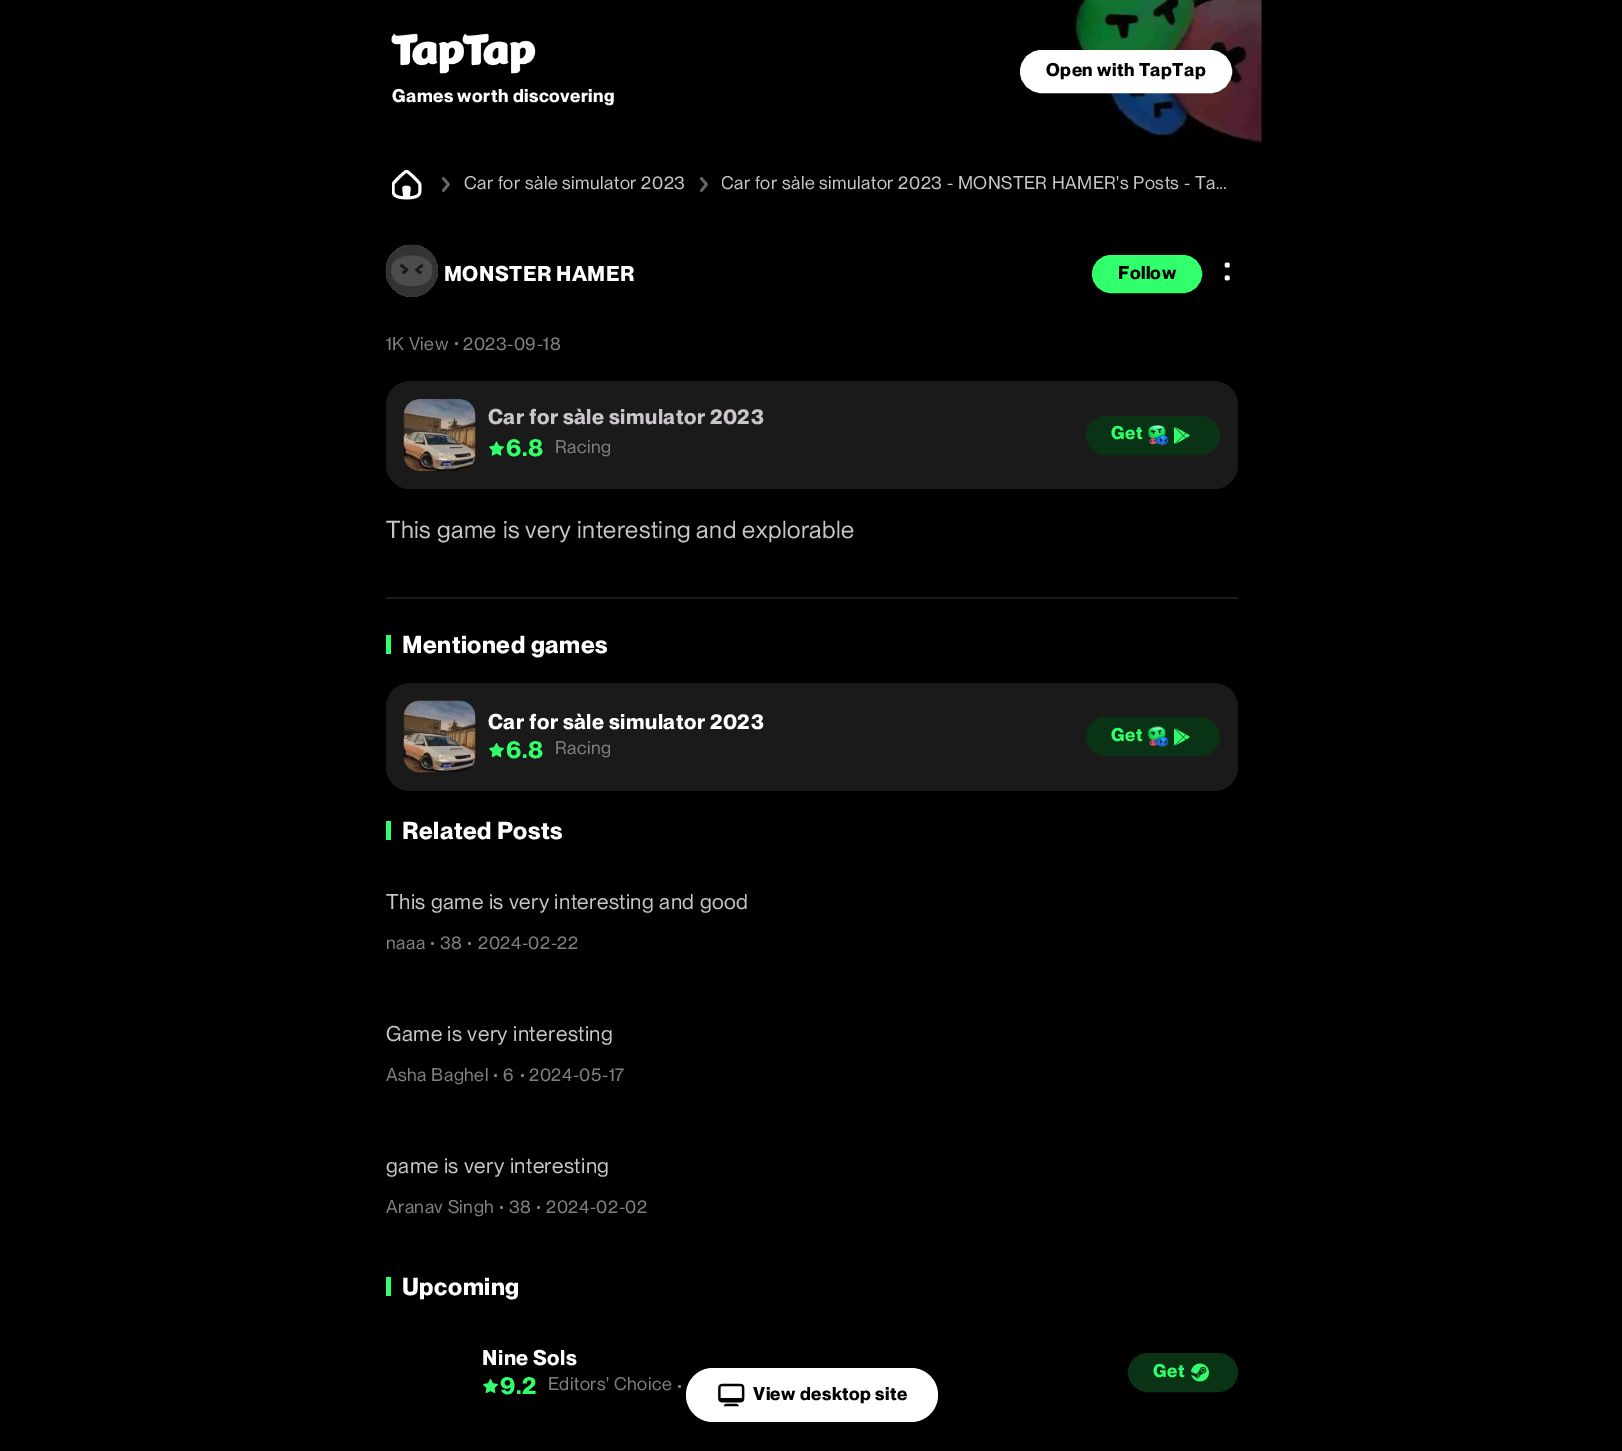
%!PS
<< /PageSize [1622 1451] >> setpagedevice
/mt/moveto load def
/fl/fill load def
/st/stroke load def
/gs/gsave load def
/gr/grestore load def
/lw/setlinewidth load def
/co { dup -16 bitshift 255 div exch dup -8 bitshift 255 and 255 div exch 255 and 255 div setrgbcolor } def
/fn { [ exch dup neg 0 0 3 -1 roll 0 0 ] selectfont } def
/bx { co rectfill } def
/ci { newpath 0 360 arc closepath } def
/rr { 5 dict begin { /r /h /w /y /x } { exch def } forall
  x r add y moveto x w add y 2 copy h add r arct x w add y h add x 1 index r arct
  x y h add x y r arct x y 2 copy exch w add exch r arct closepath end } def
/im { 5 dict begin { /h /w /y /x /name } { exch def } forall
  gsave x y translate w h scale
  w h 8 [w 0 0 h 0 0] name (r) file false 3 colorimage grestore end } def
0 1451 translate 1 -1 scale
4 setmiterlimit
0 0 1622 1451 16#000000 bx
(media/1.raw) 1071 0 191 143 im
16#FFFFFF co
1021 51 210 41 20.5 rr gs fl gr
2 lw
st
(media/2.raw) 391 33 145 41 im
(media/3.raw) 392 170 30 30 im
(media/4.raw) 441 177 9 15 im
(media/4.raw) 699 177 9 15 im
(media/5.raw) 385 244 53 53 im
16#31FF6C co
1093 256 108 36 18 rr gs fl gr
st
(media/6.raw) 1224 262 6 19 im
386 597 852 2 16#1A1A1A bx
16#808080 co
456.5 343.5 1.5 ci fl
16#1A1A1A co
386 381 852 108 24 rr fl
(media/7.raw) 403 399 73 72 im
(media/8.raw) 489 441 15 15 im
16#0A3316 co
1087 417 132 37 18.5 rr gs fl gr
st
(media/9.raw) 1148 425 21 20 im
(media/10.raw) 1174 427 16 17 im
386 635 5 19 16#31FF6C bx
16#1A1A1A co
386 683 852 108 24 rr fl
(media/11.raw) 403 700 73 73 im
(media/12.raw) 489 743 15 15 im
16#0A3316 co
1087 718 132 37 18.5 rr gs fl gr
st
(media/13.raw) 1148 726 20 21 im
(media/14.raw) 1174 728 16 18 im
386 821 5 19 16#31FF6C bx
16#808080 co
432.5 943.5 1.5 ci fl
469.5 943.5 1.5 ci fl
495.5 1075.5 1.5 ci fl
522.5 1075.5 1.5 ci fl
501.5 1207.5 1.5 ci fl
538.5 1207.5 1.5 ci fl
386 1277 5 19 16#31FF6C bx
(media/15.raw) 483 1379 15 15 im
16#808080 co
679.5 1386.5 1.5 ci fl
16#0A3316 co
1129 1354 108 37 18.5 rr gs fl gr
st
(media/16.raw) 1191 1363 18 19 im
16#FFFFFF co
686 1368 252 54 27 rr fl
(media/17.raw) 718 1383 27 24 im
/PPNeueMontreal-Bold 18 fn
16#000000 co
1046 76 mt .48 0 (Open with TapTap) ashow
16#FFFFFF co
392 102 mt .48 0 (Games worth discovering) ashow
/PPNeueMontreal-Regular 18 fn
16#C9C5CA co
464 189 mt .48 0 (Car for sàle simulator 2023) ashow
gs
722 173 516 24 rectclip
721 189 mt .48 0 (Car for sàle simulator 2023 - MONSTER HAMER's Posts - Ta…) ashow
gr
/PPNeueMontreal-Bold 21 fn
16#FFFFFF co
444 281 mt .48 0 (MONSTER HAMER) ashow
/PPNeueMontreal-Bold 18 fn
16#000000 co
1118 279 mt .48 0 (Follow) ashow
/PPNeueMontreal-Regular 18 fn
16#808080 co
386 350 mt .48 0 (1K View) ashow
463 350 mt .48 0 (2023-09-18) ashow
/PPNeueMontreal-Bold 21 fn
16#C9C5CA co
488 424 mt .48 0 (Car for sàle simulator 2023) ashow
/PPNeueMontreal-Bold 24 fn
16#31FF6C co
506 456 mt .48 0 (6.8) ashow
/PPNeueMontreal-Regular 18 fn
16#808080 co
555 453 mt .48 0 (Racing) ashow
/PPNeueMontreal-Bold 18 fn
16#31FF6C co
1111 439 mt .48 0 (Get) ashow
/PPNeueMontreal-Regular 24 fn
16#C9C5CA co
386 538 mt .48 0 (This game is very interesting and explorable) ashow
/PPNeueMontreal-Bold 24 fn
16#FFFFFF co
402 653 mt .48 0 (Mentioned games) ashow
/PPNeueMontreal-Bold 21 fn
488 729 mt .48 0 (Car for sàle simulator 2023) ashow
/PPNeueMontreal-Bold 24 fn
16#31FF6C co
506 758 mt .48 0 (6.8) ashow
/PPNeueMontreal-Regular 18 fn
16#808080 co
555 754 mt .48 0 (Racing) ashow
/PPNeueMontreal-Bold 18 fn
16#31FF6C co
1111 741 mt .48 0 (Get) ashow
/PPNeueMontreal-Bold 24 fn
16#FFFFFF co
402 839 mt .48 0 (Related Posts) ashow
/PPNeueMontreal-Regular 21 fn
16#C9C5CA co
386 909 mt .48 0 (This game is very interesting and good) ashow
/PPNeueMontreal-Regular 18 fn
16#808080 co
386 949 mt .48 0 (naaa) ashow
440 949 mt .48 0 (38) ashow
478 949 mt .48 0 (2024-02-22) ashow
/PPNeueMontreal-Regular 21 fn
16#C9C5CA co
386 1041 mt .48 0 (Game is very interesting) ashow
/PPNeueMontreal-Regular 18 fn
16#808080 co
386 1081 mt .48 0 (Asha Baghel) ashow
503 1081 mt .48 0 (6) ashow
529 1081 mt .48 0 (2024-05-17) ashow
/PPNeueMontreal-Regular 21 fn
16#C9C5CA co
386 1173 mt .48 0 (game is very interesting) ashow
/PPNeueMontreal-Regular 18 fn
16#808080 co
386 1213 mt .48 0 (Aranav Singh) ashow
509 1213 mt .48 0 (38) ashow
546 1213 mt .48 0 (2024-02-02) ashow
/PPNeueMontreal-Bold 24 fn
16#FFFFFF co
402 1295 mt .48 0 (Upcoming) ashow
/PPNeueMontreal-Bold 21 fn
482 1365 mt .48 0 (Nine Sols) ashow
/PPNeueMontreal-Bold 24 fn
16#31FF6C co
500 1394 mt .48 0 (9.2) ashow
/PPNeueMontreal-Regular 18 fn
16#808080 co
548 1390 mt .48 0 (Editors' Choice) ashow
/PPNeueMontreal-Bold 18 fn
16#31FF6C co
1153 1377 mt .48 0 (Get) ashow
16#000000 co
753 1400 mt .48 0 (View desktop site) ashow
showpage
